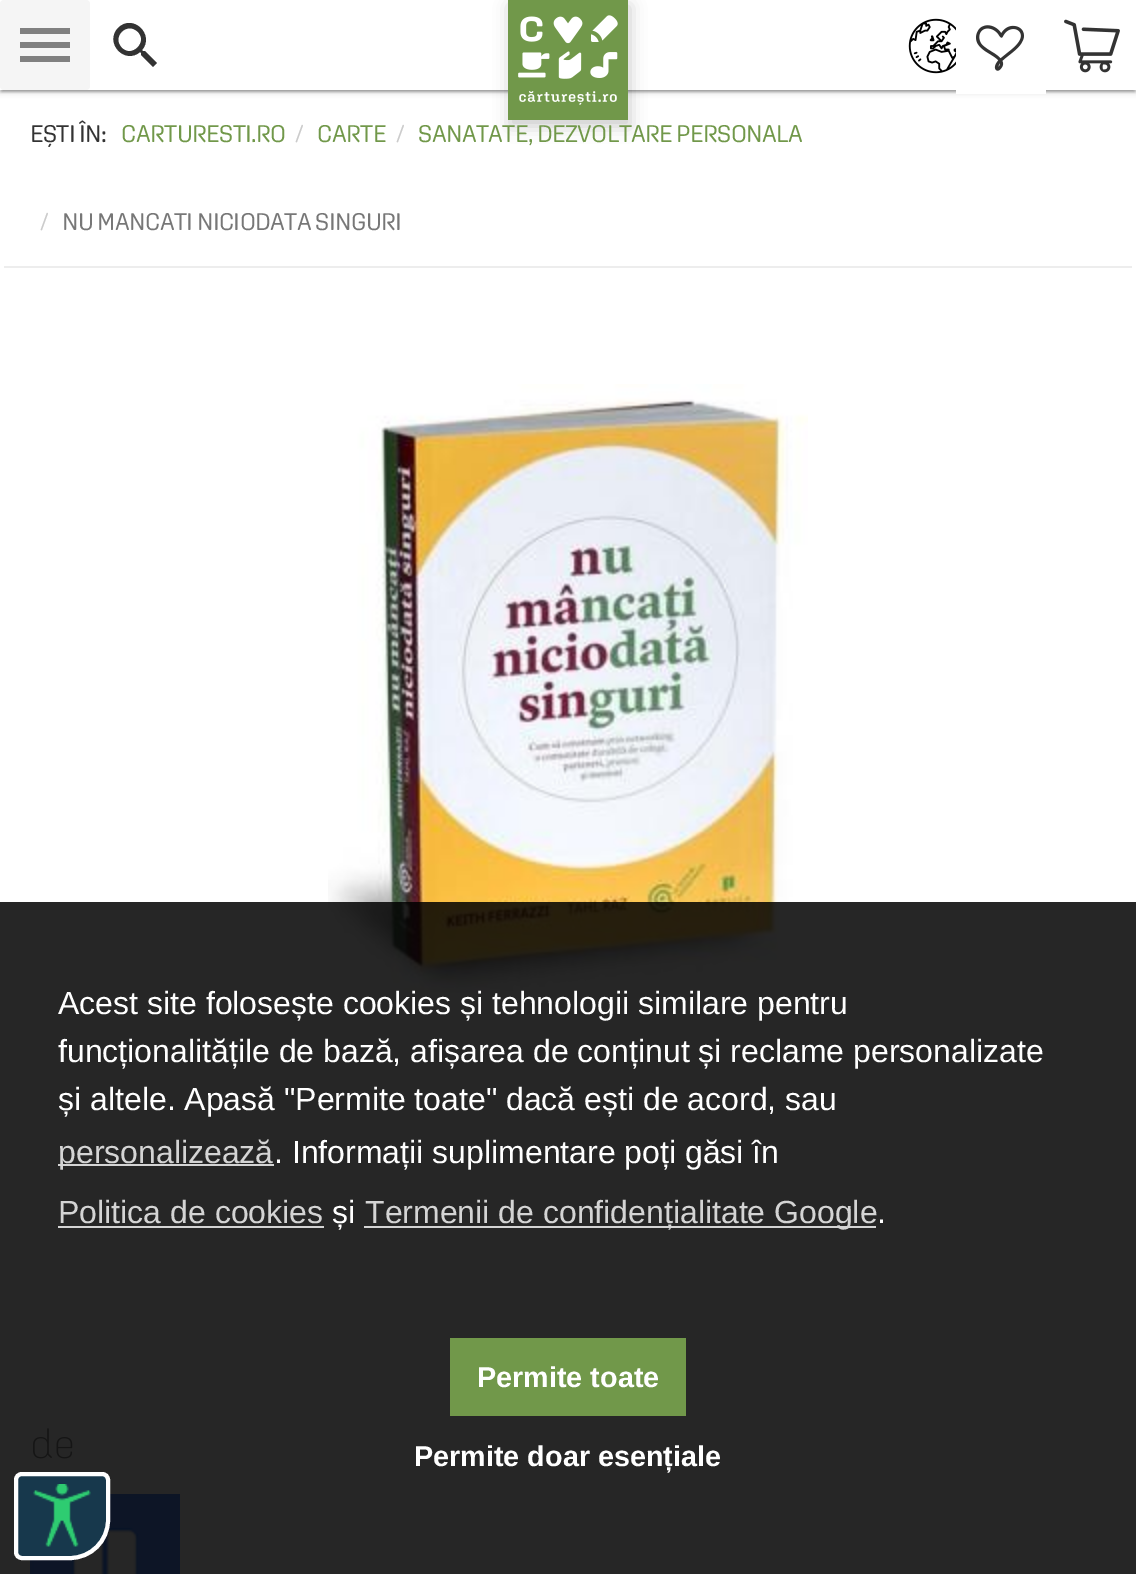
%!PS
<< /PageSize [1136 1574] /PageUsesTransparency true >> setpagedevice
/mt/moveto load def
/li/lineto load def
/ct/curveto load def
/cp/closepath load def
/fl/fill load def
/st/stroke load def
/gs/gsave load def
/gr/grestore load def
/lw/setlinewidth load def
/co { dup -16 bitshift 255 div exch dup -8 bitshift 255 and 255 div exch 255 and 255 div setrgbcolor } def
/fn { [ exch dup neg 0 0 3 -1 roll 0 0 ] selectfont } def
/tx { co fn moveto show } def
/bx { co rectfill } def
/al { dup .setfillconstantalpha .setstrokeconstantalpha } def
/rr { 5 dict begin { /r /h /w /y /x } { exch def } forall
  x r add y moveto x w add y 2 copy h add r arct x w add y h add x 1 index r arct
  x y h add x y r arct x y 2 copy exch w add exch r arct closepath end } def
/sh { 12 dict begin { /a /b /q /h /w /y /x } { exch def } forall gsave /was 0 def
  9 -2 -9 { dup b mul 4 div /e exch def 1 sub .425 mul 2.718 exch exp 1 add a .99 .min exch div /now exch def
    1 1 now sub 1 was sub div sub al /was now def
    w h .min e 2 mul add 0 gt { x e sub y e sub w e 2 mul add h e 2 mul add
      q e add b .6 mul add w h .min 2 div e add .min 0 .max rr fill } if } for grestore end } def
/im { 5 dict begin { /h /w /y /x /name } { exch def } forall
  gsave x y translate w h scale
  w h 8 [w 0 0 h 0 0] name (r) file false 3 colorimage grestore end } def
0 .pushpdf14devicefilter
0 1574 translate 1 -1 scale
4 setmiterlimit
0 0 1136 1574 16#FFFFFF bx
16#000000 co
2 6 1132 86 0 1 .12 sh
0 2 1136 90 0 1 .14 sh
0 2 1136 90 0 3 .2 sh
0 0 508 90 16#FFFFFF bx
16#F5F5F5 co
0 0 90 90 4 rr fl
16#808080 co
20 28 mt 70 28 li 70 34 li 20 34 li cp 20 48 mt 20 42 li 70 42 li 70 48 li cp 20 62 mt 20 56 li 70 56 li 70 62 li cp fl
16#333333 co
122 48 mt 132 58 148 42 138 32 ct 127 21 111 37 122 48 ct cp 145 51 mt 157 63 li 153 67 li 141 55 li 141 53 li 140 52 li 125 65 104 43 118 28 ct 133 13 155 35 142 50 ct 143 51 li cp fl
628 0 508 90 16#FFFFFF bx
16#000000 co
510 6 120 120 0 8 .21 sh
508 0 120 120 16#71984A bx
(media/1.raw) 518 15 100 90 im
(media/2.raw) 1064 19 56 54 im
(media/3.raw) 908 18 48 56 im
956 90 90 4 16#FFFFFF bx
(media/4.raw) 976 25 48 46 im
4 266 1128 2 16#EDEDED bx
(media/5.raw) 328 384 480 609 im
(media/6.raw) 33 1428 40 31 im
(media/7.raw) 30 1494 150 80 im
0.85 al
0 902 1136 672 16#000000 bx
1 al
58 1164 216 2 16#D4D4D4 bx
58 1226 266 2 16#D4D4D4 bx
364 1226 512 2 16#D4D4D4 bx
450 1338 236 78 16#71984A bx
16#17384C co
22 1474 mt 102 1474 li 105.5 1474 108 1476.5 108 1480 ct 108 1520 li 108 1541 91 1558 70 1558 ct 22 1558 li 18.5 1558 16 1555.5 16 1552 ct 16 1480 li 16 1476.5 18.5 1474 22 1474 ct cp gs fl gr
16#FFFFFF co
4 lw
st
(media/8.raw) 33 1484 58 63 im
/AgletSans-Regular 24 fn
16#333333 co
30 142 mt -.6 0 (EȘTI ÎN:) ashow
16#71984A co
121 142 mt -.6 0 (CARTURESTI.RO) ashow
16#CCCCCC co
295 142 mt -.6 0 (/) ashow
16#71984A co
317 142 mt -.6 0 (CARTE) ashow
16#CCCCCC co
396 142 mt -.6 0 (/) ashow
16#71984A co
418 142 mt -.6 0 (SANATATE, DEZVOLTARE PERSONALA) ashow
16#CCCCCC co
40 230 mt -.6 0 (/) ashow
16#777777 co
62 230 mt -.6 0 (NU MANCATI NICIODATA SINGURI) ashow
(Acest site folosește cookies și tehnologii similare pentru) 58 1014 /LiberationSans-Regular 32 16#FFFFFF tx
(funcționalitățile de bază, afișarea de conținut și reclame personalizate) 58 1062 /LiberationSans-Regular 32 16#FFFFFF tx
(și altele. Apasă "Permite toate" dacă ești de acord, sau) 58 1110 /LiberationSans-Regular 32 16#FFFFFF tx
(personalizează) 58 1163 /LiberationSans-Regular 32 16#D4D4D4 tx
(. Informații suplimentare poți găsi în) 274 1163 /LiberationSans-Regular 32 16#FFFFFF tx
(Politica de cookies) 58 1223 /LiberationSans-Regular 32 16#D4D4D4 tx
(și) 332 1223 /LiberationSans-Regular 32 16#FFFFFF tx
(Termenii de confidențialitate Google) 365 1223 /LiberationSans-Regular 32 16#D4D4D4 tx
(.) 877 1223 /LiberationSans-Regular 32 16#FFFFFF tx
(Permite toate) 477 1387 /LiberationSans-Bold 28.75 16#FFFFFF tx
(Permite doar esențiale) 414 1466 /LiberationSans-Bold 28.75 16#FFFFFF tx
.poppdf14devicefilter showpage
